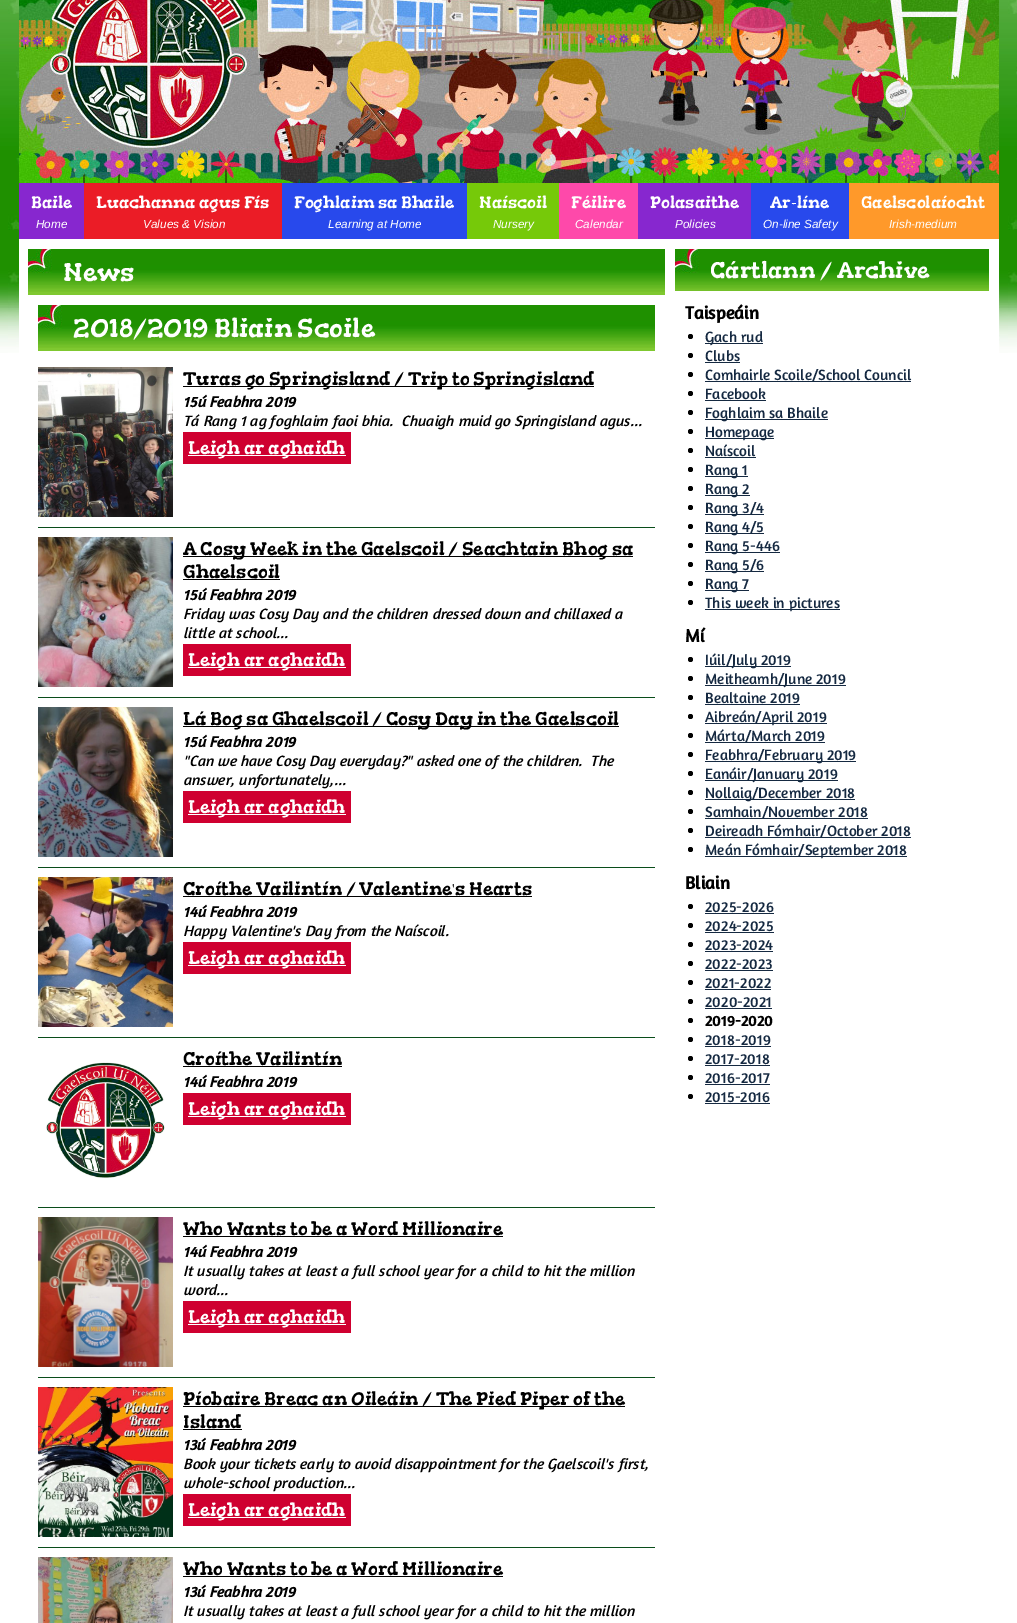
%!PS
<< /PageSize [1017 1623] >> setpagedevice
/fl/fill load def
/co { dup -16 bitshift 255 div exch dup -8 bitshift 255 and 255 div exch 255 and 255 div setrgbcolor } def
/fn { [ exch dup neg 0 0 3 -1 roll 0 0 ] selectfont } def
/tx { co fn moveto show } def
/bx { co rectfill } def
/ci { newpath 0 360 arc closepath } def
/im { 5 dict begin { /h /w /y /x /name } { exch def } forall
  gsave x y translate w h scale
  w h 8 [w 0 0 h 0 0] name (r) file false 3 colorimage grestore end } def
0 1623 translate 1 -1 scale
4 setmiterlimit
0 0 1017 1623 16#FFFFFF bx
(media/1.raw) 0 0 1017 353 im
(media/2.raw) 19 0 980 183 im
849 183 150 56 16#FF992A bx
19 183 65 56 16#8727CF bx
84 183 198 56 16#EB1C26 bx
282 183 185 56 16#2849EC bx
467 183 92 56 16#76C909 bx
559 183 79 56 16#FE49AA bx
638 183 113 56 16#8727CF bx
751 183 98 56 16#2849EC bx
19 239 980 114 16#FFFFFF bx
28 292 637 3 16#7FC830 bx
(media/3.raw) 28 249 637 43 im
38 348 617 3 16#7FC830 bx
(media/4.raw) 38 305 617 43 im
38 527 617 1 16#094D1A bx
(media/5.raw) 38 367 135 150 im
183 386 411 1 16#000000 bx
183 432 168 32 16#CF0030 bx
188 455 158 1 16#FFFFFF bx
38 697 617 1 16#094D1A bx
(media/6.raw) 38 537 135 150 im
183 556 450 1 16#000000 bx
183 579 97 1 16#000000 bx
183 644 168 32 16#CF0030 bx
188 667 158 1 16#FFFFFF bx
38 867 617 1 16#094D1A bx
(media/7.raw) 38 707 135 150 im
183 726 436 1 16#000000 bx
183 791 168 32 16#CF0030 bx
188 814 158 1 16#FFFFFF bx
38 1037 617 1 16#094D1A bx
(media/8.raw) 38 877 135 150 im
183 896 349 1 16#000000 bx
183 942 168 32 16#CF0030 bx
188 965 158 1 16#FFFFFF bx
38 1207 617 1 16#094D1A bx
(media/9.raw) 46 1062 119 116 im
183 1066 159 1 16#000000 bx
183 1093 168 32 16#CF0030 bx
188 1116 158 1 16#FFFFFF bx
38 1377 617 1 16#094D1A bx
(media/10.raw) 38 1217 135 150 im
183 1236 320 1 16#000000 bx
183 1301 168 32 16#CF0030 bx
188 1324 158 1 16#FFFFFF bx
38 1547 617 1 16#094D1A bx
(media/11.raw) 38 1387 135 150 im
183 1406 442 1 16#000000 bx
183 1429 59 1 16#000000 bx
183 1494 168 32 16#CF0030 bx
188 1517 158 1 16#FFFFFF bx
(media/12.raw) 38 1557 135 66 im
183 1576 320 1 16#000000 bx
(media/13.raw) 675 249 314 42 im
690.5 336.5 2.5 ci fl
705 343 58 1 16#152941 bx
16#000000 co
690.5 355.5 2.5 ci fl
705 362 35 1 16#152941 bx
16#000000 co
690.5 374.5 2.5 ci fl
705 381 206 1 16#152941 bx
16#000000 co
690.5 393.5 2.5 ci fl
705 400 61 1 16#152941 bx
16#000000 co
690.5 412.5 2.5 ci fl
705 419 123 1 16#152941 bx
16#000000 co
690.5 431.5 2.5 ci fl
705 438 69 1 16#152941 bx
16#000000 co
690.5 450.5 2.5 ci fl
705 457 51 1 16#152941 bx
16#000000 co
690.5 469.5 2.5 ci fl
705 476 43 1 16#152941 bx
16#000000 co
690.5 488.5 2.5 ci fl
705 495 45 1 16#152941 bx
16#000000 co
690.5 507.5 2.5 ci fl
705 514 59 1 16#152941 bx
16#000000 co
690.5 526.5 2.5 ci fl
705 533 59 1 16#152941 bx
16#000000 co
690.5 545.5 2.5 ci fl
705 552 75 1 16#152941 bx
16#000000 co
690.5 564.5 2.5 ci fl
705 571 59 1 16#152941 bx
16#000000 co
690.5 583.5 2.5 ci fl
705 590 44 1 16#152941 bx
16#000000 co
690.5 602.5 2.5 ci fl
705 609 135 1 16#152941 bx
16#000000 co
690.5 659.5 2.5 ci fl
705 666 86 1 16#152941 bx
16#000000 co
690.5 678.5 2.5 ci fl
705 685 141 1 16#152941 bx
16#000000 co
690.5 697.5 2.5 ci fl
705 704 95 1 16#152941 bx
16#000000 co
690.5 716.5 2.5 ci fl
705 723 122 1 16#152941 bx
16#000000 co
690.5 735.5 2.5 ci fl
705 742 120 1 16#152941 bx
16#000000 co
690.5 754.5 2.5 ci fl
705 761 151 1 16#152941 bx
16#000000 co
690.5 773.5 2.5 ci fl
705 780 133 1 16#152941 bx
16#000000 co
690.5 792.5 2.5 ci fl
705 799 150 1 16#152941 bx
16#000000 co
690.5 811.5 2.5 ci fl
705 818 163 1 16#152941 bx
16#000000 co
690.5 830.5 2.5 ci fl
705 837 206 1 16#152941 bx
16#000000 co
690.5 849.5 2.5 ci fl
705 856 202 1 16#152941 bx
16#000000 co
690.5 906.5 2.5 ci fl
705 913 69 1 16#152941 bx
16#000000 co
690.5 925.5 2.5 ci fl
705 932 69 1 16#152941 bx
16#000000 co
690.5 944.5 2.5 ci fl
705 951 68 1 16#152941 bx
16#000000 co
690.5 963.5 2.5 ci fl
705 970 68 1 16#152941 bx
16#000000 co
690.5 982.5 2.5 ci fl
705 989 66 1 16#152941 bx
16#000000 co
690.5 1001.5 2.5 ci fl
705 1008 67 1 16#152941 bx
16#000000 co
690.5 1020.5 2.5 ci fl
690.5 1039.5 2.5 ci fl
705 1046 66 1 16#152941 bx
16#000000 co
690.5 1058.5 2.5 ci fl
705 1065 65 1 16#152941 bx
16#000000 co
690.5 1077.5 2.5 ci fl
705 1084 65 1 16#152941 bx
16#000000 co
690.5 1096.5 2.5 ci fl
705 1103 65 1 16#152941 bx
(Baile) 31 208 /Gorditas-Regular 16.6 16#FFFFFF tx
(Home) 36 228 /LiberationSans-Italic 11.75 16#FFFFFF tx
(Luachanna agus Fís) 96 208 /Gorditas-Regular 16.6 16#FFFFFF tx
(Values & Vision) 143 228 /LiberationSans-Italic 11.75 16#FFFFFF tx
(Foghlaim sa Bhaile) 294 208 /Gorditas-Regular 16.6 16#FFFFFF tx
(Learning at Home) 328 228 /LiberationSans-Italic 11.75 16#FFFFFF tx
(Naíscoil) 479 208 /Gorditas-Regular 16.6 16#FFFFFF tx
(Nursery) 493 228 /LiberationSans-Italic 11.75 16#FFFFFF tx
(Féilire) 571 208 /Gorditas-Regular 16.6 16#FFFFFF tx
(Calendar) 575 228 /LiberationSans-Italic 11.75 16#FFFFFF tx
(Polasaithe) 650 208 /Gorditas-Regular 16.6 16#FFFFFF tx
(Policies) 675 228 /LiberationSans-Italic 11.75 16#FFFFFF tx
(Ar-líne) 770 208 /Gorditas-Regular 16.6 16#FFFFFF tx
(On-line Safety) 763 228 /LiberationSans-Italic 11.75 16#FFFFFF tx
(Gaelscolaíocht) 861 208 /Gorditas-Regular 16.6 16#FFFFFF tx
(Irish-medium) 889 228 /LiberationSans-Italic 11.75 16#FFFFFF tx
(News) 63 281 /Gorditas-Regular 25.8 16#FFFFFF tx
(2018/2019 Bliain Scoile) 73 337 /Gorditas-Regular 25.8 16#FFFFFF tx
(Turas go Springisland / Trip to Springisland) 183 385 /Gorditas-Regular 18.4 16#000000 tx
(15ú Feabhra 2019) 183 407 /Amaranth-BoldItalic 15.2 16#000000 tx
(Tá Rang 1 ag foghlaim faoi bhia.  Chuaigh muid go Springisland agus...) 183 426 /Amaranth-Italic 15.2 16#000000 tx
(Leigh ar aghaidh) 188 454 /Gorditas-Regular 18.25 16#FFFFFF tx
(A Cosy Week in the Gaelscoil / Seachtain Bhog sa) 183 555 /Gorditas-Regular 18.4 16#000000 tx
(Ghaelscoil) 183 578 /Gorditas-Regular 18.4 16#000000 tx
(15ú Feabhra 2019) 183 600 /Amaranth-BoldItalic 15.2 16#000000 tx
(Friday was Cosy Day and the children dressed down and chillaxed a) 183 619 /Amaranth-Italic 15.2 16#000000 tx
(little at school...) 183 638 /Amaranth-Italic 15.2 16#000000 tx
(Leigh ar aghaidh) 188 666 /Gorditas-Regular 18.25 16#FFFFFF tx
(Lá Bog sa Ghaelscoil / Cosy Day in the Gaelscoil) 183 725 /Gorditas-Regular 18.4 16#000000 tx
(15ú Feabhra 2019) 183 747 /Amaranth-BoldItalic 15.2 16#000000 tx
("Can we have Cosy Day everyday?" asked one of the children.  The) 183 766 /Amaranth-Italic 15.2 16#000000 tx
(answer, unfortunately,...) 183 785 /Amaranth-Italic 15.2 16#000000 tx
(Leigh ar aghaidh) 188 813 /Gorditas-Regular 18.25 16#FFFFFF tx
(Croíthe Vailintín / Valentine's Hearts) 183 895 /Gorditas-Regular 18.4 16#000000 tx
(14ú Feabhra 2019) 183 917 /Amaranth-BoldItalic 15.2 16#000000 tx
(Happy Valentine's Day from the Naíscoil.) 183 936 /Amaranth-Italic 15.2 16#000000 tx
(Leigh ar aghaidh) 188 964 /Gorditas-Regular 18.25 16#FFFFFF tx
(Croíthe Vailintín) 183 1065 /Gorditas-Regular 18.4 16#000000 tx
(14ú Feabhra 2019) 183 1087 /Amaranth-BoldItalic 15.2 16#000000 tx
(Leigh ar aghaidh) 188 1115 /Gorditas-Regular 18.25 16#FFFFFF tx
(Who Wants to be a Word Millionaire) 183 1235 /Gorditas-Regular 18.4 16#000000 tx
(14ú Feabhra 2019) 183 1257 /Amaranth-BoldItalic 15.2 16#000000 tx
(It usually takes at least a full school year for a child to hit the million) 183 1276 /Amaranth-Italic 15.2 16#000000 tx
(word...) 183 1295 /Amaranth-Italic 15.2 16#000000 tx
(Leigh ar aghaidh) 188 1323 /Gorditas-Regular 18.25 16#FFFFFF tx
(Píobaire Breac an Oileáin / The Pied Piper of the) 183 1405 /Gorditas-Regular 18.4 16#000000 tx
(Island) 183 1428 /Gorditas-Regular 18.4 16#000000 tx
(13ú Feabhra 2019) 183 1450 /Amaranth-BoldItalic 15.2 16#000000 tx
(Book your tickets early to avoid disappointment for the Gaelscoil's first,) 183 1469 /Amaranth-Italic 15.2 16#000000 tx
(whole-school production...) 183 1488 /Amaranth-Italic 15.2 16#000000 tx
(Leigh ar aghaidh) 188 1516 /Gorditas-Regular 18.25 16#FFFFFF tx
(Who Wants to be a Word Millionaire) 183 1575 /Gorditas-Regular 18.4 16#000000 tx
(13ú Feabhra 2019) 183 1597 /Amaranth-BoldItalic 15.2 16#000000 tx
(It usually takes at least a full school year for a child to hit the million) 183 1616 /Amaranth-Italic 15.2 16#000000 tx
(Cártlann / Archive) 710 278 /Gorditas-Regular 22.75 16#FFFFFF tx
(Taispeáin) 685 319 /Amaranth-Bold 18.25 16#000000 tx
(Gach rud) 705 342 /Amaranth-Regular 15.2 16#152941 tx
(Clubs) 705 361 /Amaranth-Regular 15.2 16#152941 tx
(Comhairle Scoile/School Council) 705 380 /Amaranth-Regular 15.2 16#152941 tx
(Facebook) 705 399 /Amaranth-Regular 15.2 16#152941 tx
(Foghlaim sa Bhaile) 705 418 /Amaranth-Regular 15.2 16#152941 tx
(Homepage) 705 437 /Amaranth-Regular 15.2 16#152941 tx
(Naíscoil) 705 456 /Amaranth-Regular 15.2 16#152941 tx
(Rang 1) 705 475 /Amaranth-Regular 15.2 16#152941 tx
(Rang 2) 705 494 /Amaranth-Regular 15.2 16#152941 tx
(Rang 3/4) 705 513 /Amaranth-Regular 15.2 16#152941 tx
(Rang 4/5) 705 532 /Amaranth-Regular 15.2 16#152941 tx
(Rang 5-446) 705 551 /Amaranth-Regular 15.2 16#152941 tx
(Rang 5/6) 705 570 /Amaranth-Regular 15.2 16#152941 tx
(Rang 7) 705 589 /Amaranth-Regular 15.2 16#152941 tx
(This week in pictures) 705 608 /Amaranth-Regular 15.2 16#152941 tx
(Mí) 685 642 /Amaranth-Bold 18.25 16#000000 tx
(Iúil/July 2019) 705 665 /Amaranth-Regular 15.2 16#152941 tx
(Meitheamh/June 2019) 705 684 /Amaranth-Regular 15.2 16#152941 tx
(Bealtaine 2019) 705 703 /Amaranth-Regular 15.2 16#152941 tx
(Aibreán/April 2019) 705 722 /Amaranth-Regular 15.2 16#152941 tx
(Márta/March 2019) 705 741 /Amaranth-Regular 15.2 16#152941 tx
(Feabhra/February 2019) 705 760 /Amaranth-Regular 15.2 16#152941 tx
(Eanáir/January 2019) 705 779 /Amaranth-Regular 15.2 16#152941 tx
(Nollaig/December 2018) 705 798 /Amaranth-Regular 15.2 16#152941 tx
(Samhain/November 2018) 705 817 /Amaranth-Regular 15.2 16#152941 tx
(Deireadh Fómhair/October 2018) 705 836 /Amaranth-Regular 15.2 16#152941 tx
(Meán Fómhair/September 2018) 705 855 /Amaranth-Regular 15.2 16#152941 tx
(Bliain) 685 889 /Amaranth-Bold 18.25 16#000000 tx
(2025-2026) 705 912 /Amaranth-Regular 15.2 16#152941 tx
(2024-2025) 705 931 /Amaranth-Regular 15.2 16#152941 tx
(2023-2024) 705 950 /Amaranth-Regular 15.2 16#152941 tx
(2022-2023) 705 969 /Amaranth-Regular 15.2 16#152941 tx
(2021-2022) 705 988 /Amaranth-Regular 15.2 16#152941 tx
(2020-2021) 705 1007 /Amaranth-Regular 15.2 16#152941 tx
(2019-2020) 705 1026 /Amaranth-Bold 15.2 16#000000 tx
(2018-2019) 705 1045 /Amaranth-Regular 15.2 16#152941 tx
(2017-2018) 705 1064 /Amaranth-Regular 15.2 16#152941 tx
(2016-2017) 705 1083 /Amaranth-Regular 15.2 16#152941 tx
(2015-2016) 705 1102 /Amaranth-Regular 15.2 16#152941 tx
showpage
